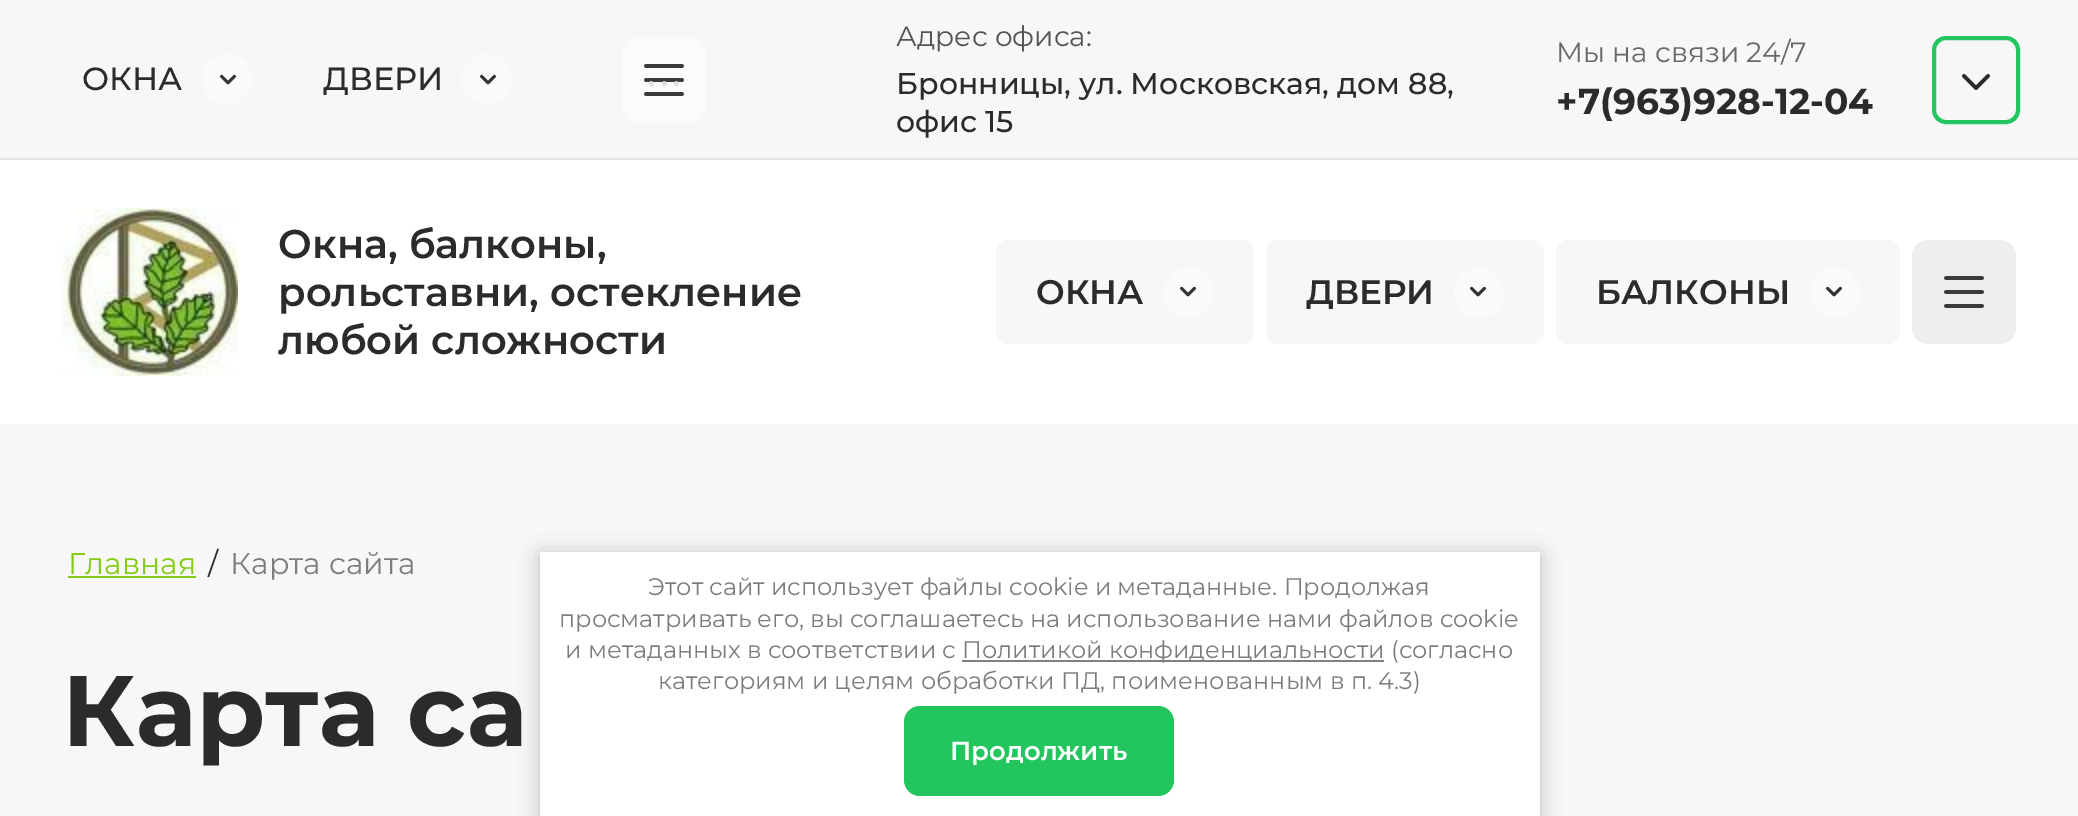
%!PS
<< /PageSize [2078 816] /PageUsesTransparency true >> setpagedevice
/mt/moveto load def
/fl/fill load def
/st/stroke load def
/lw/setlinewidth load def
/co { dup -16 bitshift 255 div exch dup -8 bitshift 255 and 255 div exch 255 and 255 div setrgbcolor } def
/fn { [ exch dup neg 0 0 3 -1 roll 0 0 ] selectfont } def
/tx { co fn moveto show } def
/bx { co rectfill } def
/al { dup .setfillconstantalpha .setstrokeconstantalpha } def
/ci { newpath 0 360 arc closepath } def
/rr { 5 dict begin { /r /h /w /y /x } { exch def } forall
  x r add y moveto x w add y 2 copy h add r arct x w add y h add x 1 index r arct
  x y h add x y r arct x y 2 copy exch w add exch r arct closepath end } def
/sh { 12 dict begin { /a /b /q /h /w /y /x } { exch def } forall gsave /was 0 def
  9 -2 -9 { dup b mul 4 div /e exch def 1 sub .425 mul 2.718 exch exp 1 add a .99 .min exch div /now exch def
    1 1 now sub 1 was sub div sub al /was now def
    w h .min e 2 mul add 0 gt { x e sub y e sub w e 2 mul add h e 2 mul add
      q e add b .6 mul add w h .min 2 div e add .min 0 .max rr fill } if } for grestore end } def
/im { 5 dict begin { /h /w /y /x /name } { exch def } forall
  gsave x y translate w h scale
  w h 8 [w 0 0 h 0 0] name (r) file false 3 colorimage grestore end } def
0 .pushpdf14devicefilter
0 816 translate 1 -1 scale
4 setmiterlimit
0 0 2078 816 16#F7F7F7 bx
0 158 2078 2 16#E3E3E3 bx
16#FAFAFA co
227 79 25 ci fl
(media/1.raw) 220 74 16 11 im
487 79 25 ci fl
(media/1.raw) 480 74 16 11 im
16#FBFBFB co
622 38 84 84 16 rr fl
(media/2.raw) 644 64 40 32 im
16#22C55E co
4 lw
1934 38 84 84 12 rr st
(media/3.raw) 1962 74 28 16 im
0 160 2078 264 16#FFFFFF bx
(media/4.raw) 62 208 176 168 im
16#F7F7F7 co
996 240 258 104 12 rr fl
16#FAFAFA co
1189 293 25 ci fl
(media/1.raw) 1180 286 16 11 im
16#F7F7F7 co
1266 240 278 104 12 rr fl
16#FAFAFA co
1479 293 25 ci fl
(media/1.raw) 1470 286 16 11 im
16#F7F7F7 co
1556 240 344 104 12 rr fl
16#FAFAFA co
1835 293 25 ci fl
(media/1.raw) 1826 286 16 11 im
16#EEEEEE co
1912 240 104 104 16 rr fl
(media/5.raw) 1944 276 40 32 im
68 576 128 2 16#84CC16 bx
16#000000 co
540 554 1000 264 0 10 .23 sh
540 552 1000 264 16#FFFFFF bx
962 660 422 2 16#808080 bx
16#22C55E co
904 706 270 90 16 rr fl
(ОКНА) 82 90 /Montserrat-Medium 32 16#2B2B2B tx
(ДВЕРИ) 323 90 /Montserrat-Medium 32 16#2B2B2B tx
/Montserrat-Medium 38 fn
16#DEDEDE co
647 86 mt 4 0 (...) ashow
(Адрес офиса:) 896 46 /Montserrat-Regular 28 16#545454 tx
(Бронницы, ул. Московская, дом 88,) 896 94 /Montserrat-Medium 30 16#2B2B2B tx
(офис 15) 896 132 /Montserrat-Medium 30 16#2B2B2B tx
(Мы на связи 24/7) 1556 62 /Montserrat-Regular 28 16#686868 tx
(+7\(963\)928-12-04) 1556 114 /Montserrat-Bold 36 16#2B2B2B tx
(Окна, балконы,) 278 258 /Montserrat-SemiBold 40 16#2B2B2B tx
(рольставни, остекление) 278 306 /Montserrat-SemiBold 40 16#2B2B2B tx
(любой сложности) 278 354 /Montserrat-SemiBold 40 16#2B2B2B tx
(ОКНА) 1036 304 /Montserrat-SemiBold 34 16#2B2B2B tx
(ДВЕРИ) 1306 304 /Montserrat-SemiBold 34 16#2B2B2B tx
(БАЛКОНЫ) 1596 304 /Montserrat-SemiBold 34 16#2B2B2B tx
(Главная) 68 574 /Montserrat-Regular 30 16#84CC16 tx
(/) 208 574 /Montserrat-Regular 30 16#2B2B2B tx
(Карта сайта) 230 574 /Montserrat-Regular 30 16#7D7D7D tx
(Карта са) 62 746 /Montserrat-Bold 100 16#2B2B2B tx
(Этот сайт использует файлы cookie и метаданные. Продолжая) 648 595 /Montserrat-Regular 24 16#7D7D7D tx
(просматривать его, вы соглашаетесь на использование нами файлов cookie) 559 627 /Montserrat-Regular 24 16#7D7D7D tx
(и метаданных в соответствии с) 565 658 /Montserrat-Regular 24 16#7D7D7D tx
(Политикой конфиденциальности \(согласно) 962 658 /Montserrat-Regular 24 16#7D7D7D tx
(категориям и целям обработки ПД, поименованным в п. 4.3\)) 658 689 /Montserrat-Regular 24 16#7D7D7D tx
(Продолжить) 950 760 /Montserrat-SemiBold 26 16#FFFFFF tx
.poppdf14devicefilter showpage
